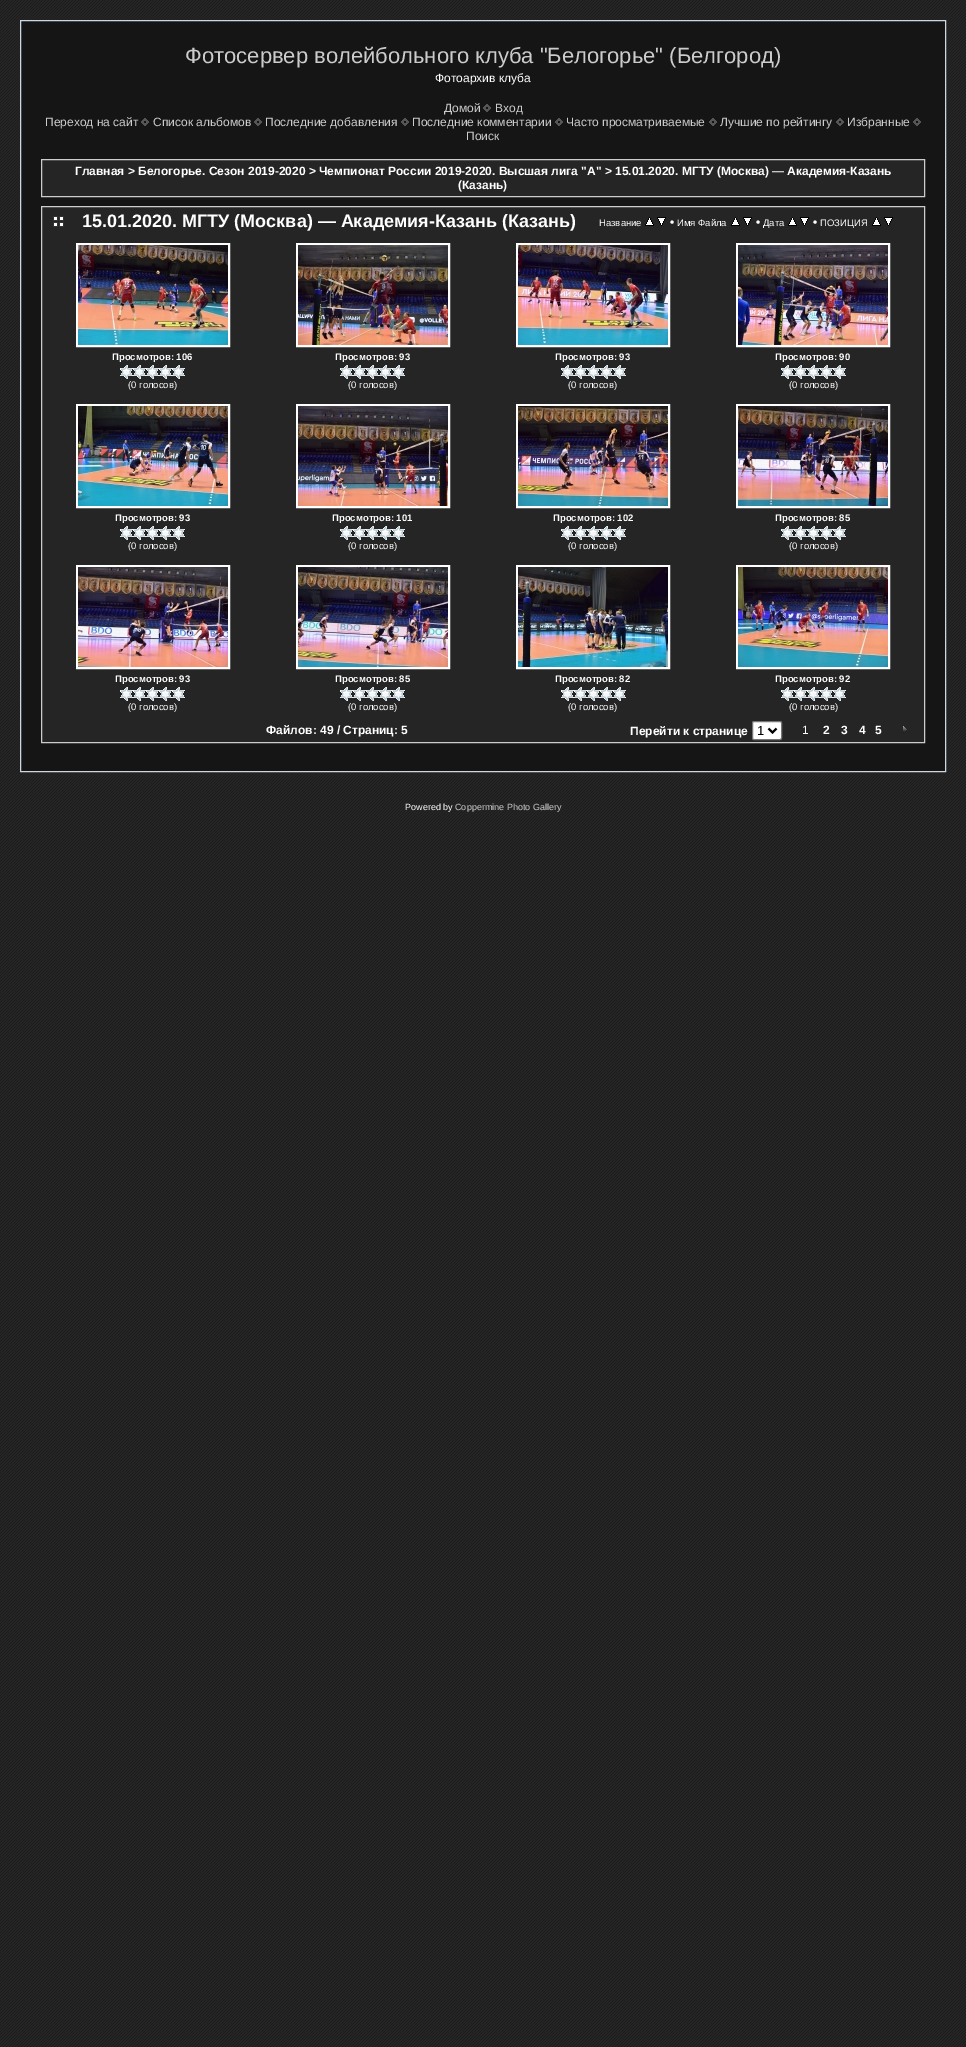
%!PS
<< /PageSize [966 2047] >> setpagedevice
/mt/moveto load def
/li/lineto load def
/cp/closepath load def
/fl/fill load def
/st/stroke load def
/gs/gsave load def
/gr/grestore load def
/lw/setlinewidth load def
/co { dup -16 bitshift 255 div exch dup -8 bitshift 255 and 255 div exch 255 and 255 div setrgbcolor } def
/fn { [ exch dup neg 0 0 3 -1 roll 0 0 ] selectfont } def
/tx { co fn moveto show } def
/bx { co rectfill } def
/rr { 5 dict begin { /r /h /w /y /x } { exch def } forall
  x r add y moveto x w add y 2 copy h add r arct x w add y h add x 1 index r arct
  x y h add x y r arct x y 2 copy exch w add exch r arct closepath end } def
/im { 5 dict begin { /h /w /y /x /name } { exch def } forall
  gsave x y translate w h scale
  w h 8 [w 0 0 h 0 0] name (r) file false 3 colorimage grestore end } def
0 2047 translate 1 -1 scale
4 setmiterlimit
0 0 966 2047 16#FFFFFF bx
(media/1.raw) 0 0 966 2047 im
16#151515 co
20.5 20.5 mt 945.5 20.5 li 945.5 771.5 li 20.5 771.5 li cp gs fl gr
16#CCD7E0 co
st
(media/2.raw) 483 104 8 8 im
(media/2.raw) 141 118 8 8 im
(media/2.raw) 254 118 8 8 im
(media/2.raw) 401 118 8 8 im
(media/2.raw) 555 118 8 8 im
(media/2.raw) 709 118 8 8 im
(media/2.raw) 836 118 8 8 im
(media/2.raw) 913 118 8 8 im
16#252525 co
41.5 159.5 mt 924.5 159.5 li 924.5 196.5 li 41.5 196.5 li cp gs fl gr
16#CCCCCC co
st
16#252525 co
41.5 206.5 mt 924.5 206.5 li 924.5 742.5 li 41.5 742.5 li cp gs fl gr
16#CCCCCC co
st
(media/3.raw) 53 216 11 11 im
(media/4.raw) 645 217 9 9 im
(media/5.raw) 657 217 9 9 im
(media/4.raw) 731 217 9 9 im
(media/5.raw) 743 217 9 9 im
(media/4.raw) 788 217 9 9 im
(media/5.raw) 800 217 9 9 im
(media/4.raw) 872 217 9 9 im
(media/5.raw) 884 217 9 9 im
16#FFFFFF co
2 lw
77 244 152 102 rectstroke
(media/6.raw) 78 245 150 100 im
(media/7.raw) 120 365 13 14 im
(media/7.raw) 133 365 13 14 im
(media/7.raw) 146 365 13 14 im
(media/7.raw) 159 365 13 14 im
(media/7.raw) 172 365 13 14 im
297 244 152 102 rectstroke
(media/8.raw) 298 245 150 100 im
(media/7.raw) 340 365 13 14 im
(media/7.raw) 353 365 13 14 im
(media/7.raw) 366 365 13 14 im
(media/7.raw) 379 365 13 14 im
(media/7.raw) 392 365 13 14 im
517 244 152 102 rectstroke
(media/9.raw) 518 245 150 100 im
(media/7.raw) 561 365 13 14 im
(media/7.raw) 574 365 13 14 im
(media/7.raw) 587 365 13 14 im
(media/7.raw) 600 365 13 14 im
(media/7.raw) 613 365 13 14 im
737 244 152 102 rectstroke
(media/10.raw) 738 245 150 100 im
(media/7.raw) 781 365 13 14 im
(media/7.raw) 794 365 13 14 im
(media/7.raw) 807 365 13 14 im
(media/7.raw) 820 365 13 14 im
(media/7.raw) 833 365 13 14 im
77 405 152 102 rectstroke
(media/11.raw) 78 406 150 100 im
(media/7.raw) 120 526 13 14 im
(media/7.raw) 133 526 13 14 im
(media/7.raw) 146 526 13 14 im
(media/7.raw) 159 526 13 14 im
(media/7.raw) 172 526 13 14 im
297 405 152 102 rectstroke
(media/12.raw) 298 406 150 100 im
(media/7.raw) 340 526 13 14 im
(media/7.raw) 353 526 13 14 im
(media/7.raw) 366 526 13 14 im
(media/7.raw) 379 526 13 14 im
(media/7.raw) 392 526 13 14 im
517 405 152 102 rectstroke
(media/13.raw) 518 406 150 100 im
(media/7.raw) 561 526 13 14 im
(media/7.raw) 574 526 13 14 im
(media/7.raw) 587 526 13 14 im
(media/7.raw) 600 526 13 14 im
(media/7.raw) 613 526 13 14 im
737 405 152 102 rectstroke
(media/14.raw) 738 406 150 100 im
(media/7.raw) 781 526 13 14 im
(media/7.raw) 794 526 13 14 im
(media/7.raw) 807 526 13 14 im
(media/7.raw) 820 526 13 14 im
(media/7.raw) 833 526 13 14 im
77 566 152 102 rectstroke
(media/15.raw) 78 567 150 100 im
(media/7.raw) 120 687 13 14 im
(media/7.raw) 133 687 13 14 im
(media/7.raw) 146 687 13 14 im
(media/7.raw) 159 687 13 14 im
(media/7.raw) 172 687 13 14 im
297 566 152 102 rectstroke
(media/16.raw) 298 567 150 100 im
(media/7.raw) 340 687 13 14 im
(media/7.raw) 353 687 13 14 im
(media/7.raw) 366 687 13 14 im
(media/7.raw) 379 687 13 14 im
(media/7.raw) 392 687 13 14 im
517 566 152 102 rectstroke
(media/17.raw) 518 567 150 100 im
(media/7.raw) 561 687 13 14 im
(media/7.raw) 574 687 13 14 im
(media/7.raw) 587 687 13 14 im
(media/7.raw) 600 687 13 14 im
(media/7.raw) 613 687 13 14 im
737 566 152 102 rectstroke
(media/18.raw) 738 567 150 100 im
(media/7.raw) 781 687 13 14 im
(media/7.raw) 794 687 13 14 im
(media/7.raw) 807 687 13 14 im
(media/7.raw) 820 687 13 14 im
(media/7.raw) 833 687 13 14 im
752.5 721.5 29 18 1.5 rr gs fl gr
16#767676 co
1 lw
st
16#000000 co
2 lw
768.5 728.5 mt 772.5 732.5 li 776.5 728.5 li st
(media/19.raw) 903 726 4 7 im
(Фотосервер волейбольного клуба "Белогорье" \(Белгород\)) 185 63 /LiberationSans-Regular 22 16#CCCCCC tx
(Фотоархив клуба) 435 82 /LiberationSans-Regular 12 16#FFFFFF tx
(Домой) 444 112 /LiberationSans-Regular 12 16#CCCCCC tx
(Вход) 495 112 /LiberationSans-Regular 12 16#CCCCCC tx
(Переход на сайт) 45 126 /LiberationSans-Regular 12 16#CCCCCC tx
(Список альбомов) 153 126 /LiberationSans-Regular 12 16#CCCCCC tx
(Последние добавления) 265 126 /LiberationSans-Regular 12 16#CCCCCC tx
(Последние комментарии) 412 126 /LiberationSans-Regular 12 16#CCCCCC tx
(Часто просматриваемые) 566 126 /LiberationSans-Regular 12 16#CCCCCC tx
(Лучшие по рейтингу) 720 126 /LiberationSans-Regular 12 16#CCCCCC tx
(Избранные) 847 126 /LiberationSans-Regular 12 16#CCCCCC tx
(Поиск) 466 140 /LiberationSans-Regular 12 16#CCCCCC tx
(Главная > Белогорье. Сезон 2019-2020 > Чемпионат России 2019-2020. Высшая лига "А" > 15.01.2020. МГТУ \(Москва\) — Академия-Казань) 75 175 /LiberationSans-Bold 12 16#FFFFFF tx
(\(Казань\)) 458 189 /LiberationSans-Bold 12 16#FFFFFF tx
(15.01.2020. МГТУ \(Москва\) — Академия-Казань \(Казань\)) 82 227 /LiberationSans-Bold 18 16#FFFFFF tx
(Название) 599 226 /LiberationSans-Regular 9.5 16#FFFFFF tx
(•) 670 226 /LiberationSans-Bold 12 16#FFFFFF tx
(Имя Файла) 677 226 /LiberationSans-Regular 9.5 16#FFFFFF tx
(•) 756 226 /LiberationSans-Bold 12 16#FFFFFF tx
(Дата) 763 226 /LiberationSans-Regular 9.5 16#FFFFFF tx
(•) 813 226 /LiberationSans-Bold 12 16#FFFFFF tx
(ПОЗИЦИЯ) 820 226 /LiberationSans-Regular 9.5 16#FFFFFF tx
(Просмотров: 106) 112 360 /LiberationSans-Bold 9.5 16#FFFFFF tx
(\(0 голосов\)) 128 388 /LiberationSans-Regular 9.5 16#FFFFFF tx
(Просмотров: 93) 335 360 /LiberationSans-Bold 9.5 16#FFFFFF tx
(\(0 голосов\)) 348 388 /LiberationSans-Regular 9.5 16#FFFFFF tx
(Просмотров: 93) 555 360 /LiberationSans-Bold 9.5 16#FFFFFF tx
(\(0 голосов\)) 568 388 /LiberationSans-Regular 9.5 16#FFFFFF tx
(Просмотров: 90) 775 360 /LiberationSans-Bold 9.5 16#FFFFFF tx
(\(0 голосов\)) 789 388 /LiberationSans-Regular 9.5 16#FFFFFF tx
(Просмотров: 93) 115 521 /LiberationSans-Bold 9.5 16#FFFFFF tx
(\(0 голосов\)) 128 549 /LiberationSans-Regular 9.5 16#FFFFFF tx
(Просмотров: 101) 332 521 /LiberationSans-Bold 9.5 16#FFFFFF tx
(\(0 голосов\)) 348 549 /LiberationSans-Regular 9.5 16#FFFFFF tx
(Просмотров: 102) 553 521 /LiberationSans-Bold 9.5 16#FFFFFF tx
(\(0 голосов\)) 568 549 /LiberationSans-Regular 9.5 16#FFFFFF tx
(Просмотров: 85) 775 521 /LiberationSans-Bold 9.5 16#FFFFFF tx
(\(0 голосов\)) 789 549 /LiberationSans-Regular 9.5 16#FFFFFF tx
(Просмотров: 93) 115 682 /LiberationSans-Bold 9.5 16#FFFFFF tx
(\(0 голосов\)) 128 710 /LiberationSans-Regular 9.5 16#FFFFFF tx
(Просмотров: 85) 335 682 /LiberationSans-Bold 9.5 16#FFFFFF tx
(\(0 голосов\)) 348 710 /LiberationSans-Regular 9.5 16#FFFFFF tx
(Просмотров: 82) 555 682 /LiberationSans-Bold 9.5 16#FFFFFF tx
(\(0 голосов\)) 568 710 /LiberationSans-Regular 9.5 16#FFFFFF tx
(Просмотров: 92) 775 682 /LiberationSans-Bold 9.5 16#FFFFFF tx
(\(0 голосов\)) 789 710 /LiberationSans-Regular 9.5 16#FFFFFF tx
(Файлов: 49 / Страниц: 5) 266 734 /LiberationSans-Bold 12 16#FFFFFF tx
(Перейти к странице) 630 735 /LiberationSans-Bold 12 16#FFFFFF tx
(1) 757 735 /LiberationSans-Regular 13 16#000000 tx
(1) 802 734 /LiberationSans-Regular 12 16#FFFFFF tx
(2) 823 734 /LiberationSans-Bold 12 16#FFFFFF tx
(3) 841 734 /LiberationSans-Bold 12 16#FFFFFF tx
(4) 859 734 /LiberationSans-Bold 12 16#FFFFFF tx
(5) 875 734 /LiberationSans-Bold 12 16#FFFFFF tx
(Powered by) 405 810 /LiberationSans-Regular 9 16#FFFFFF tx
(Coppermine Photo Gallery) 455 810 /LiberationSans-Regular 9 16#CCCCCC tx
showpage
